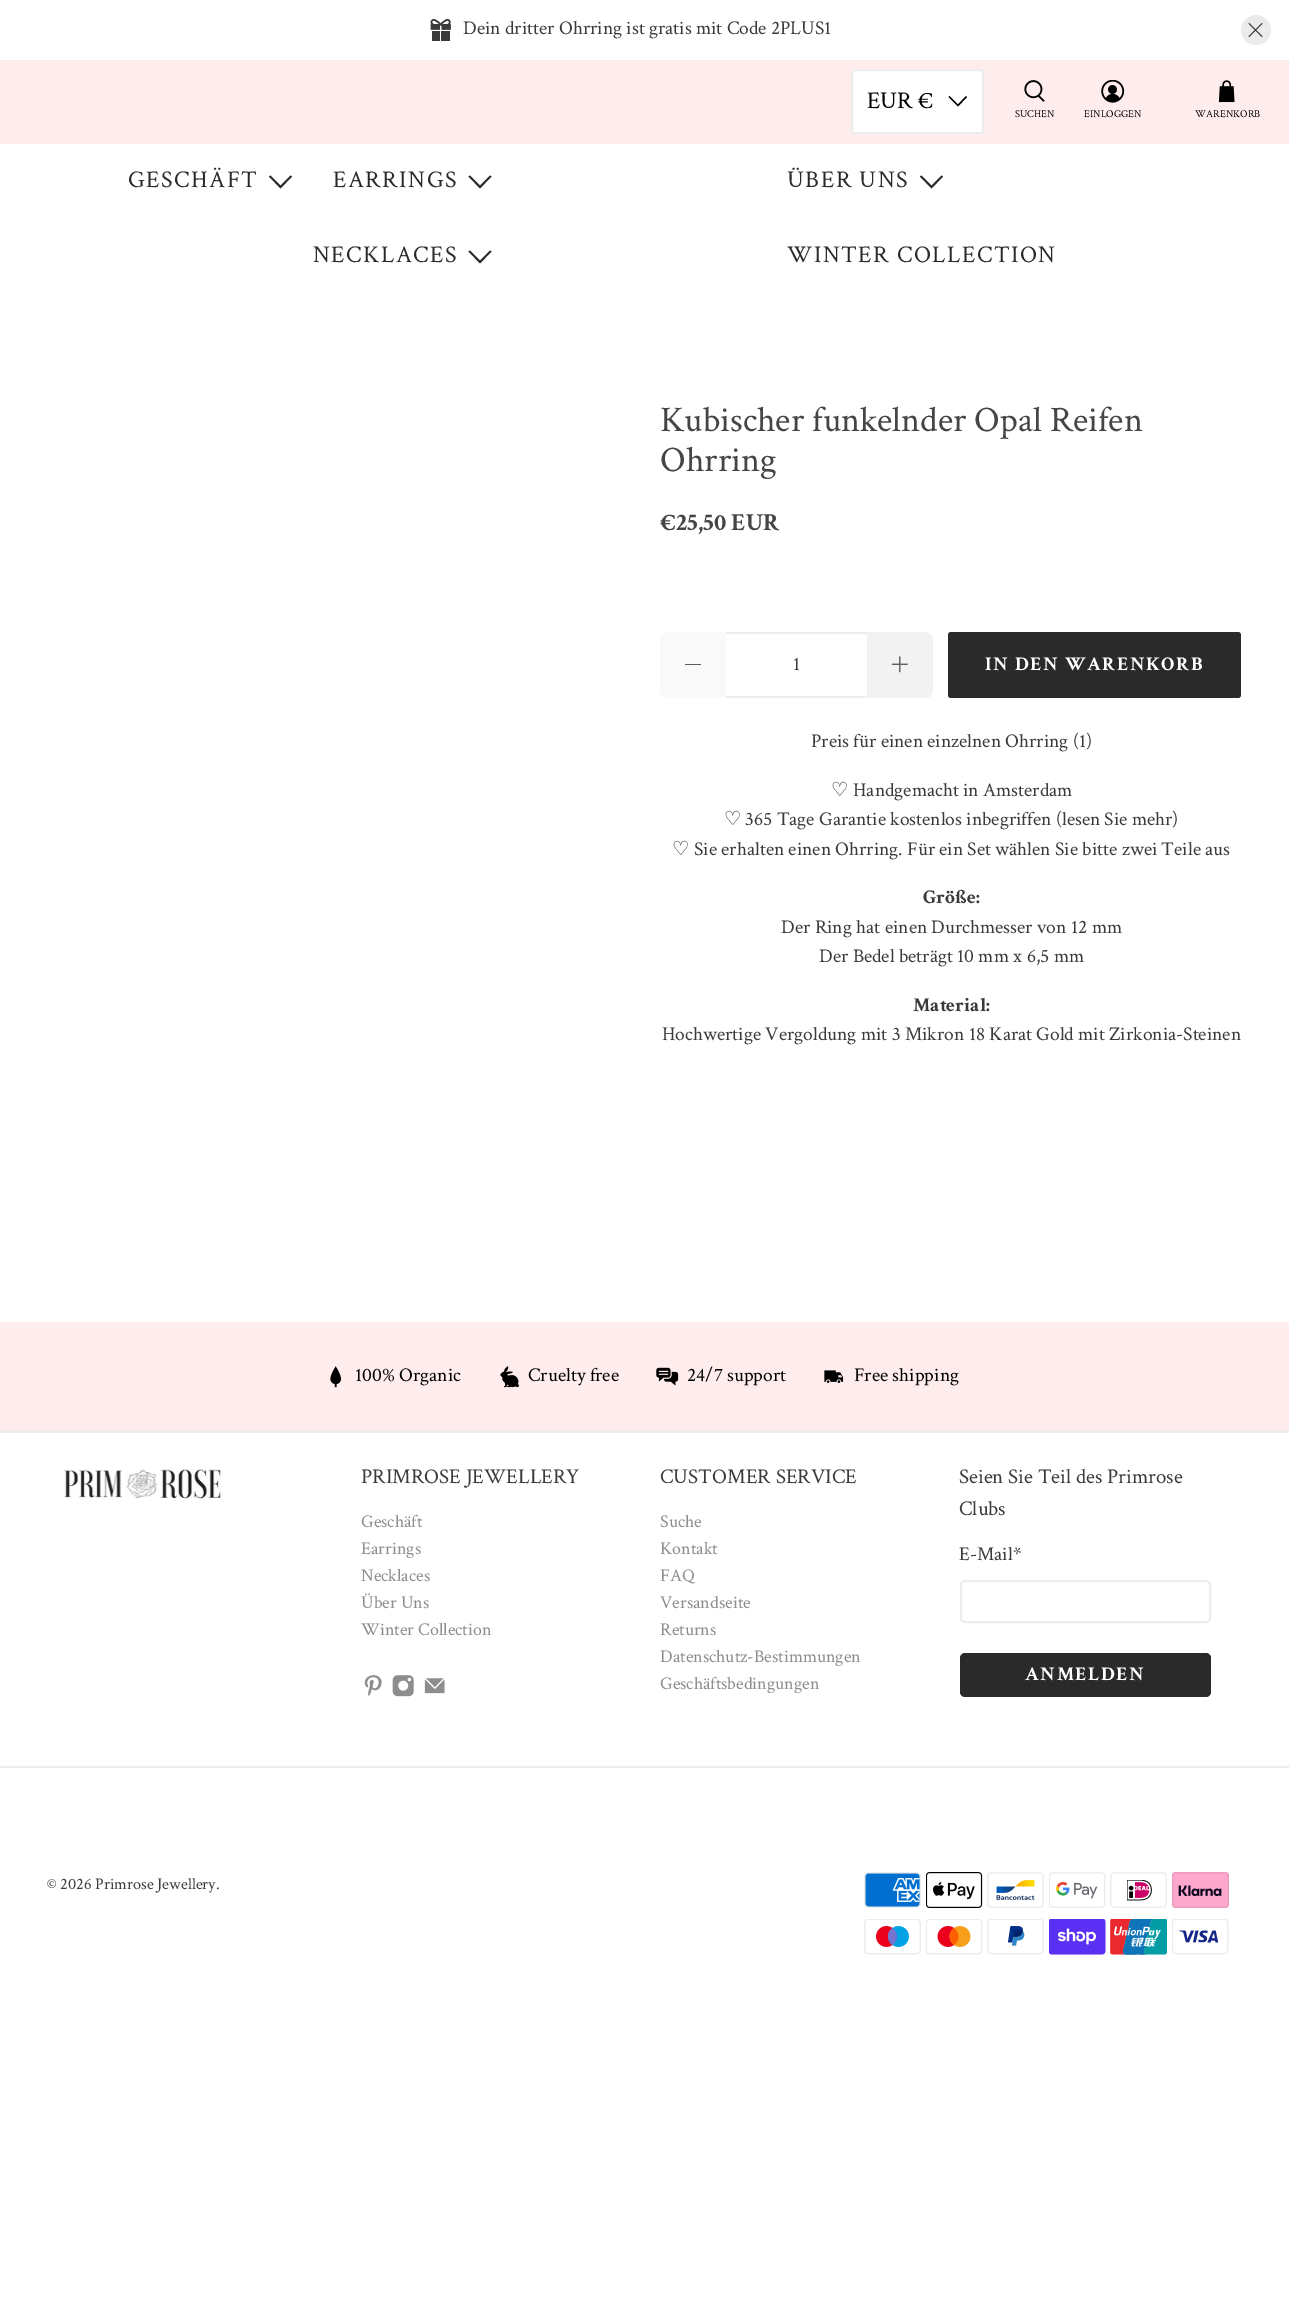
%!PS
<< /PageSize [1289 2302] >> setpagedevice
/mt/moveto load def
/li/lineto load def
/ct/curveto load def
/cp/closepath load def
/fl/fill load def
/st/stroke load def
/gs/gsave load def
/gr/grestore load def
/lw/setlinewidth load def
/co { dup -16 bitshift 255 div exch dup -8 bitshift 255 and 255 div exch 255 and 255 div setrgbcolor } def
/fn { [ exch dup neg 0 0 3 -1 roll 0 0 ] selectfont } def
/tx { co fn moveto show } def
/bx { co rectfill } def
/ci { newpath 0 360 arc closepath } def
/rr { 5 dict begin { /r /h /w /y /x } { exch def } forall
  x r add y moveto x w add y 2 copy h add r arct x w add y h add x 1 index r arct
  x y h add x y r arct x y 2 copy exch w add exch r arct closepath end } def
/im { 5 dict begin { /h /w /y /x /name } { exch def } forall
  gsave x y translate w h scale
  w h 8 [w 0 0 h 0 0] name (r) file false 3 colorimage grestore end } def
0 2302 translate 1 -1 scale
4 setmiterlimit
0 0 1289 2302 16#FFFFFF bx
(media/1.raw) 430 18 21 23 im
16#EBEBEB co
1256 30 15 ci fl
(media/2.raw) 1248 23 15 15 im
0 60 1289 84 16#FFEDED bx
16#FFFFFF co
852 70 131 63 2 rr gs fl gr
16#EDEDED co
2 lw
st
16#000000 co
958 106.5 mt 948.5 97 li 949.5 96 li 958 104.5 li 966 96 li 967 97 li cp fl
(media/3.raw) 1024 80 21 22 im
(media/4.raw) 1101 80 24 23 im
(media/5.raw) 1218 80 17 23 im
16#2B2A2A co
280.5 188.5 mt 269 176.5 li 270.5 175.5 li 280.5 185.5 li 290.5 175.5 li 292 176.5 li cp fl
480 188.5 mt 468.5 176.5 li 470 175.5 li 480 185.5 li 490 175.5 li 491.5 176.5 li cp fl
480 263.5 mt 468.5 251.5 li 470 250.5 li 480 260.5 li 490 250.5 li 491.5 251.5 li cp fl
931.5 188.5 mt 920 176.5 li 921.5 175.5 li 931.5 185.5 li 941.5 175.5 li 943 176.5 li cp fl
16#F9F9F9 co
668 632 mt 726 632 li 726 698 li 668 698 li 663.5 698 660 694.5 660 690 ct 660 640 li 660 635.5 663.5 632 668 632 ct cp fl
685 664 16 1 16#5D5D5D bx
726 632 141 2 16#EDEDED bx
726 696 141 2 16#EDEDED bx
16#F2F2F2 co
867 632 mt 925 632 li 929.5 632 933 635.5 933 640 ct 933 690 li 933 694.5 929.5 698 925 698 ct 867 698 li cp fl
(media/6.raw) 891 656 17 17 im
16#2B2A2A co
948 632 293 66 3 rr fl
0 1322 1289 109 16#FFEDED bx
(media/7.raw) 330 1366 12 22 im
(media/8.raw) 500 1366 20 22 im
(media/9.raw) 656 1367 23 19 im
(media/10.raw) 824 1370 20 13 im
0 1431 1289 2 16#EDEDED bx
0 1766 1289 2 16#EDEDED bx
(media/11.raw) 64 1469 157 32 im
(media/12.raw) 364 1675 18 22 im
(media/13.raw) 392 1675 22 22 im
(media/14.raw) 424 1678 21 16 im
961 1581 249 41 4 rr st
16#2B2A2A co
960 1653 251 44 5 rr fl
(media/15.raw) 864 1872 57 36 im
(media/16.raw) 926 1872 57 36 im
(media/17.raw) 987 1872 57 36 im
(media/18.raw) 1049 1872 57 36 im
(media/19.raw) 1110 1872 57 36 im
(media/20.raw) 1172 1872 57 36 im
(media/21.raw) 864 1919 57 36 im
(media/22.raw) 926 1919 57 36 im
(media/23.raw) 987 1919 57 36 im
(media/24.raw) 1049 1919 57 36 im
(media/25.raw) 1110 1919 57 36 im
(media/26.raw) 1172 1919 57 36 im
(Dein dritter Ohrring ist gratis mit Code 2PLUS1) 463 34 /CrimsonText-Regular 19.5 16#3A3A3A tx
(EUR €) 867 108 /CrimsonText-Regular 24 16#000000 tx
(SUCHEN) 1015 117 /CrimsonText-Regular 10.5 16#000000 tx
(EINLOGGEN) 1084 117 /CrimsonText-Regular 10.5 16#000000 tx
(WARENKORB) 1195 117 /CrimsonText-Regular 10.5 16#000000 tx
/CrimsonText-Regular 24 fn
16#2B2A2A co
128 187 mt 1.5 0 (GESCHÄFT) ashow
333 187 mt 1.5 0 (EARRINGS) ashow
313 262 mt 1.5 0 (NECKLACES) ashow
787 187 mt 1.5 0 (ÜBER UNS) ashow
787 262 mt 1.5 0 (WINTER COLLECTION) ashow
(Kubischer funkelnder Opal Reifen) 660 431 /CrimsonText-Regular 36 16#454545 tx
(Ohrring) 660 471 /CrimsonText-Regular 36 16#454545 tx
(€25,50 EUR) 660 530 /CrimsonText-Bold 24.5 16#454545 tx
(1) 793 670 /CrimsonText-Regular 19.5 16#3A3A3A tx
/CrimsonText-Bold 19.5 fn
16#FFFFFF co
985 670 mt 1.5 0 (IN DEN WARENKORB) ashow
(Preis für einen einzelnen Ohrring \(1\)) 811 747 /CrimsonText-Regular 19.5 16#3A3A3A tx
(♡) 831 796 /DejaVuSans-Regular 19.5 16#3A3A3A tx
(Handgemacht in Amsterdam) 853 796 /CrimsonText-Regular 19.5 16#3A3A3A tx
(♡) 724 825 /DejaVuSans-Regular 19.5 16#3A3A3A tx
(365 Tage Garantie kostenlos inbegriffen \(lesen Sie mehr\)) 745 825 /CrimsonText-Regular 19.5 16#3A3A3A tx
(♡) 672 855 /DejaVuSans-Regular 19.5 16#3A3A3A tx
(Sie erhalten einen Ohrring. Für ein Set wählen Sie bitte zwei Teile aus) 694 855 /CrimsonText-Regular 19.5 16#3A3A3A tx
(Größe:) 923 903 /CrimsonText-Bold 19.5 16#3A3A3A tx
(Der Ring hat einen Durchmesser von 12 mm) 781 933 /CrimsonText-Regular 19.5 16#3A3A3A tx
(Der Bedel beträgt 10 mm x 6,5 mm) 819 962 /CrimsonText-Regular 19.5 16#3A3A3A tx
(Material:) 913 1011 /CrimsonText-Bold 19.5 16#3A3A3A tx
(Hochwertige Vergoldung mit 3 Mikron 18 Karat Gold mit Zirkonia-Steinen) 662 1040 /CrimsonText-Regular 19.5 16#3A3A3A tx
(100% Organic) 355 1381 /CrimsonText-Regular 19.5 16#000000 tx
(Cruelty free) 528 1381 /CrimsonText-Regular 19.5 16#000000 tx
(24/7 support) 687 1381 /CrimsonText-Regular 19.5 16#000000 tx
(Free shipping) 854 1381 /CrimsonText-Regular 19.5 16#000000 tx
(PRIMROSE JEWELLERY) 361 1483 /CrimsonText-Regular 21 16#3A3A3A tx
(Geschäft) 361 1527 /CrimsonText-Regular 18 16#8D8D8D tx
(Earrings) 361 1554 /CrimsonText-Regular 18 16#8D8D8D tx
(Necklaces) 361 1581 /CrimsonText-Regular 18 16#8D8D8D tx
(Über Uns) 361 1608 /CrimsonText-Regular 18 16#8D8D8D tx
(Winter Collection) 361 1635 /CrimsonText-Regular 18 16#8D8D8D tx
(CUSTOMER SERVICE) 660 1483 /CrimsonText-Regular 21 16#3A3A3A tx
(Suche) 660 1527 /CrimsonText-Regular 18 16#8D8D8D tx
(Kontakt) 660 1554 /CrimsonText-Regular 18 16#8D8D8D tx
(FAQ) 660 1581 /CrimsonText-Regular 18 16#8D8D8D tx
(Versandseite) 660 1608 /CrimsonText-Regular 18 16#8D8D8D tx
(Returns) 660 1635 /CrimsonText-Regular 18 16#8D8D8D tx
(Datenschutz-Bestimmungen) 660 1662 /CrimsonText-Regular 18 16#8D8D8D tx
(Geschäftsbedingungen) 660 1689 /CrimsonText-Regular 18 16#8D8D8D tx
(Seien Sie Teil des Primrose) 959 1483 /CrimsonText-Regular 21 16#3A3A3A tx
(Clubs) 959 1515 /CrimsonText-Regular 21 16#3A3A3A tx
(E-Mail*) 959 1560 /CrimsonText-Regular 19.5 16#3A3A3A tx
/CrimsonText-Bold 19.5 fn
16#FFFFFF co
1025 1680 mt 1.5 0 (ANMELDEN) ashow
(© 2026 Primrose Jewellery.) 47 1889 /CrimsonText-Regular 16.25 16#3A3A3A tx
showpage
